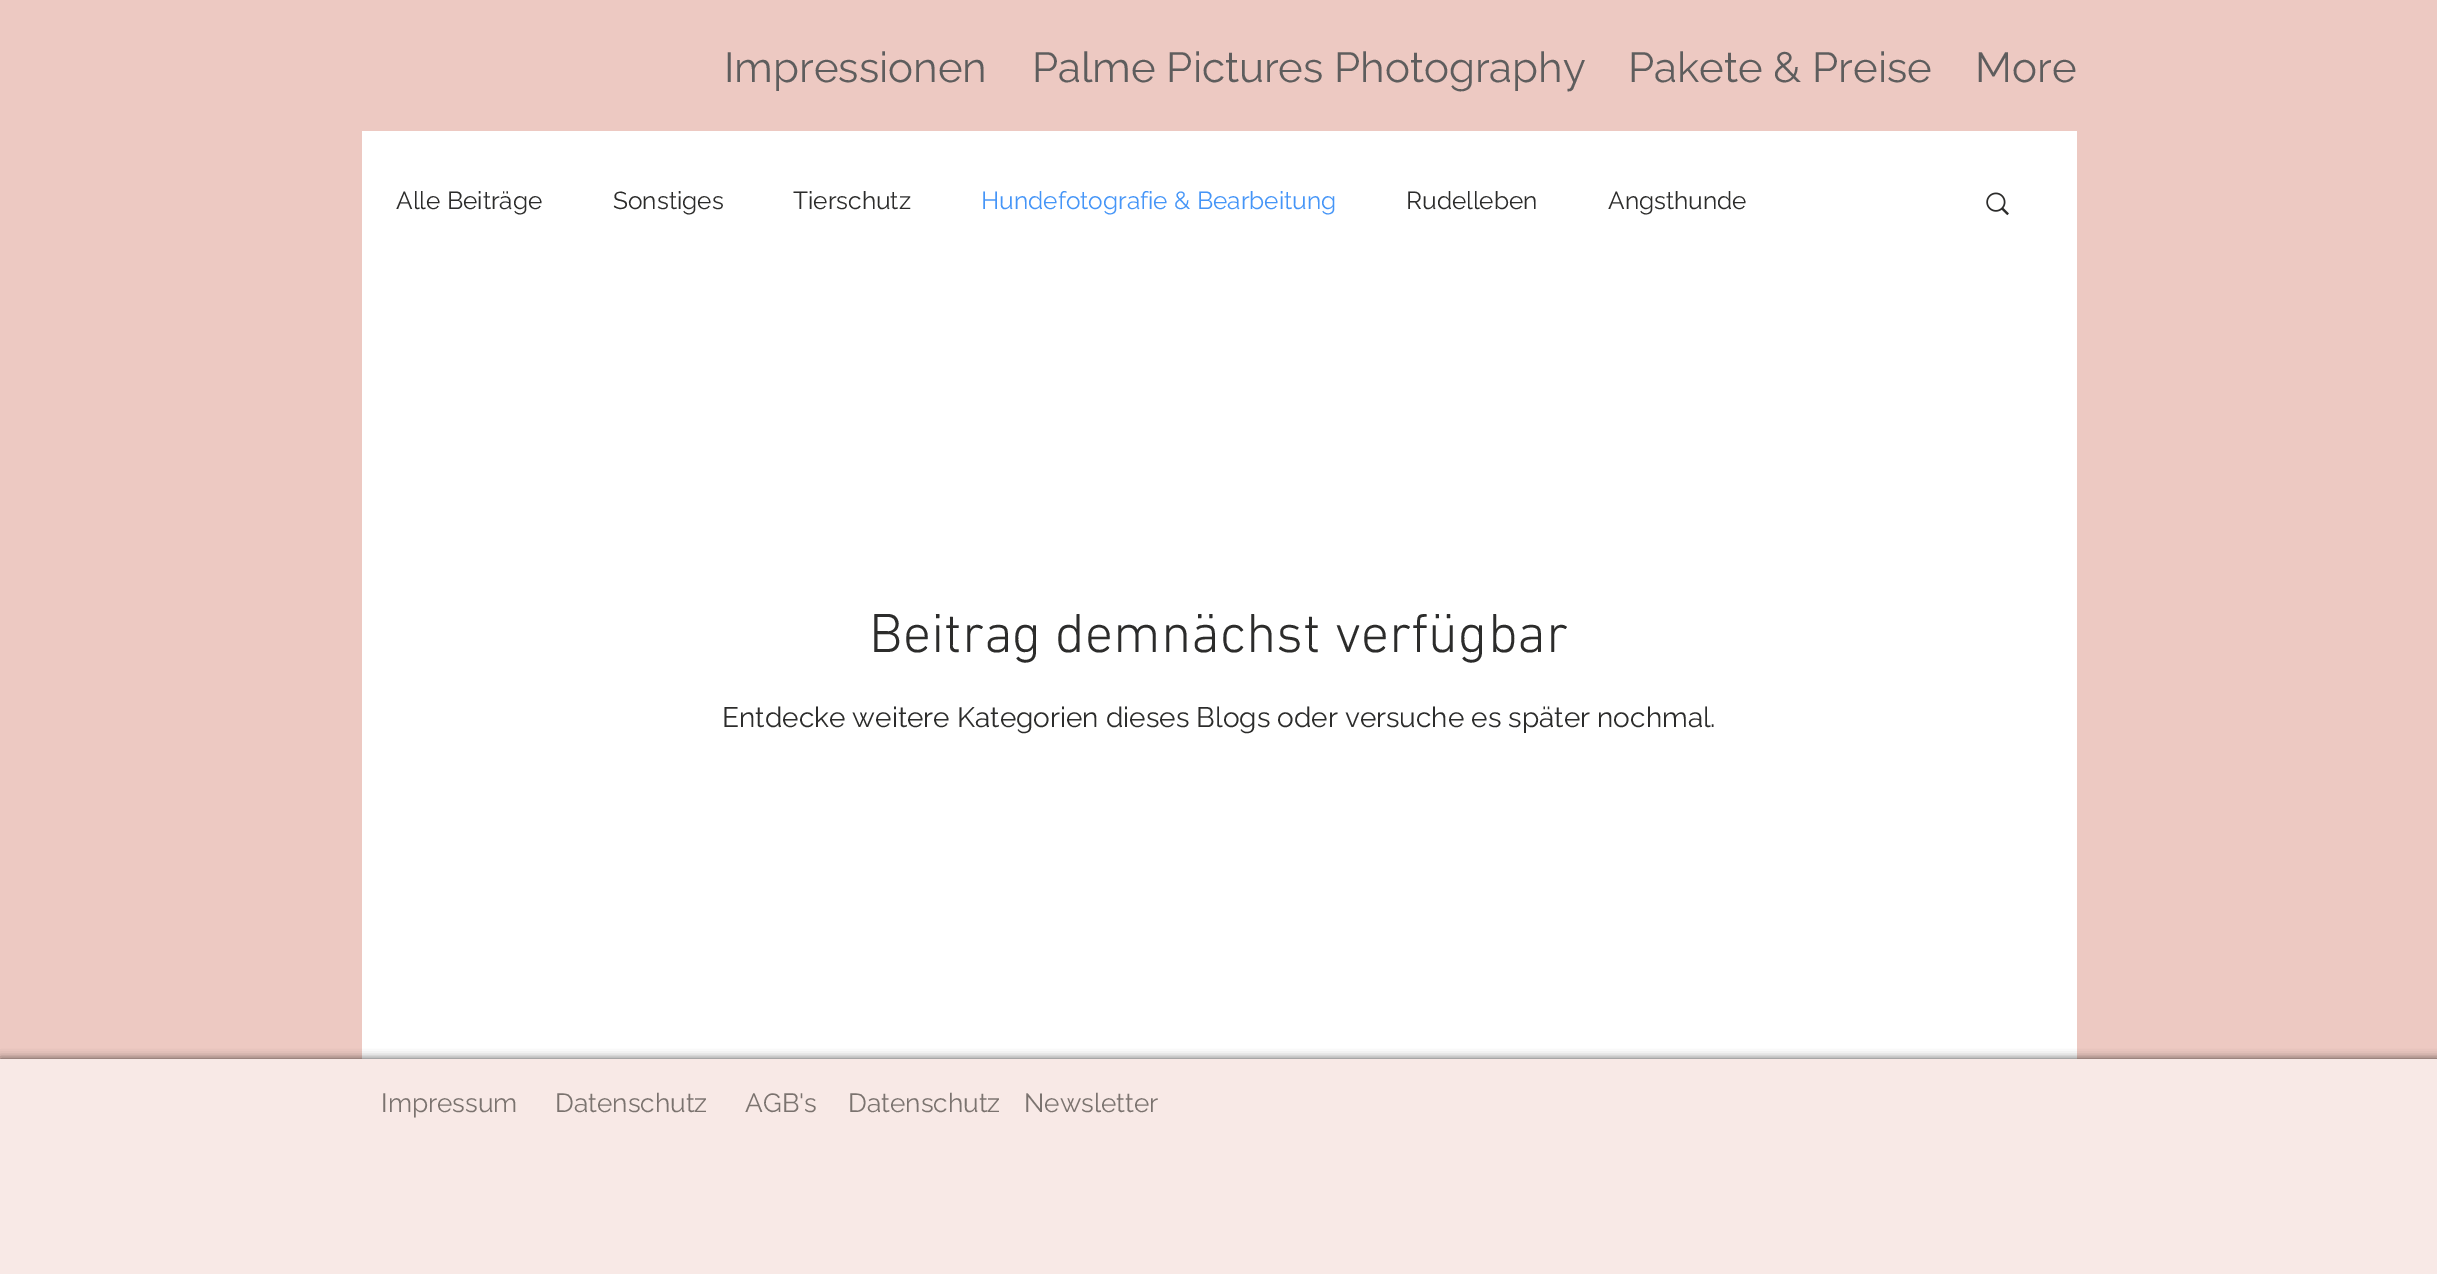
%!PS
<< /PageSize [2437 1274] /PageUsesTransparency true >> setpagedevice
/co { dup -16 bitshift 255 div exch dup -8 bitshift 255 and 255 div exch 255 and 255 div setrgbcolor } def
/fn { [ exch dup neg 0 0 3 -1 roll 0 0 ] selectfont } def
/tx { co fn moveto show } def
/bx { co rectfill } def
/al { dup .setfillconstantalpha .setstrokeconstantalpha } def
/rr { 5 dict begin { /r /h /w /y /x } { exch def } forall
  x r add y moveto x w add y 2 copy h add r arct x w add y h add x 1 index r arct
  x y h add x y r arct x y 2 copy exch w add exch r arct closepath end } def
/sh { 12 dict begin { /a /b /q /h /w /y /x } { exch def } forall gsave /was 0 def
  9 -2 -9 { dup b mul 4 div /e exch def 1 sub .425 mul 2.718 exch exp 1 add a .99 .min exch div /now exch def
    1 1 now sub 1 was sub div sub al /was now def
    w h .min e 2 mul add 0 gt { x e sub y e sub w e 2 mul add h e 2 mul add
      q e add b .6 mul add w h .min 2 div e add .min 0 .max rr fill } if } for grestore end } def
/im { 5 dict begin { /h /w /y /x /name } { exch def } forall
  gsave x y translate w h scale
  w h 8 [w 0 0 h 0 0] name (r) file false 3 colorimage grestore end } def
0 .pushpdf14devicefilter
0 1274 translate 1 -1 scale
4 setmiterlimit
0 0 2437 1274 16#EDC9C2 bx
362 131 1715 928 16#FFFFFF bx
(media/1.raw) 1986 192 23 24 im
16#000000 co
0 1059 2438 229 0 4.5 .7 sh
0 1059 2437 215 16#F8E9E6 bx
(Impressionen) 724 82 /Raleway-Regular 42 16#5E5D5D tx
(Palme Pictures Photography) 1032 82 /Raleway-Regular 42 16#5E5D5D tx
(Pakete & Preise) 1628 82 /Raleway-Regular 42 16#5E5D5D tx
(More) 1975 82 /Raleway-Regular 42 16#5E5D5D tx
(Alle Beiträge) 396 209 /Raleway-Regular 24.5 16#2C2C2B tx
(Sonstiges) 613 209 /Raleway-Regular 24.5 16#2C2C2B tx
(Tierschutz) 793 209 /Raleway-Regular 24.5 16#2C2C2B tx
(Hundefotografie & Bearbeitung) 981 209 /Raleway-Regular 24.5 16#4595F7 tx
(Rudelleben) 1406 209 /Raleway-Regular 24.5 16#2C2C2B tx
(Angsthunde) 1608 209 /Raleway-Regular 24.5 16#2C2C2B tx
(Beitrag demnächst verfügbar) 869 652 /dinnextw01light-Light 56 16#2C2C2B tx
(Entdecke weitere Kategorien dieses Blogs oder versuche es später nochmal.) 722 727 /Raleway-Regular 28 16#2C2C2B tx
(Impressum) 381 1112 /Raleway-Regular 26.25 16#7B736F tx
(Datenschutz) 555 1112 /Raleway-Regular 26.25 16#7B736F tx
(AGB's) 745 1112 /Raleway-Regular 26.25 16#7B736F tx
(Datenschutz) 848 1112 /Raleway-Regular 26.25 16#7B736F tx
(Newsletter) 1024 1112 /Raleway-Regular 26.25 16#7B736F tx
.poppdf14devicefilter showpage
